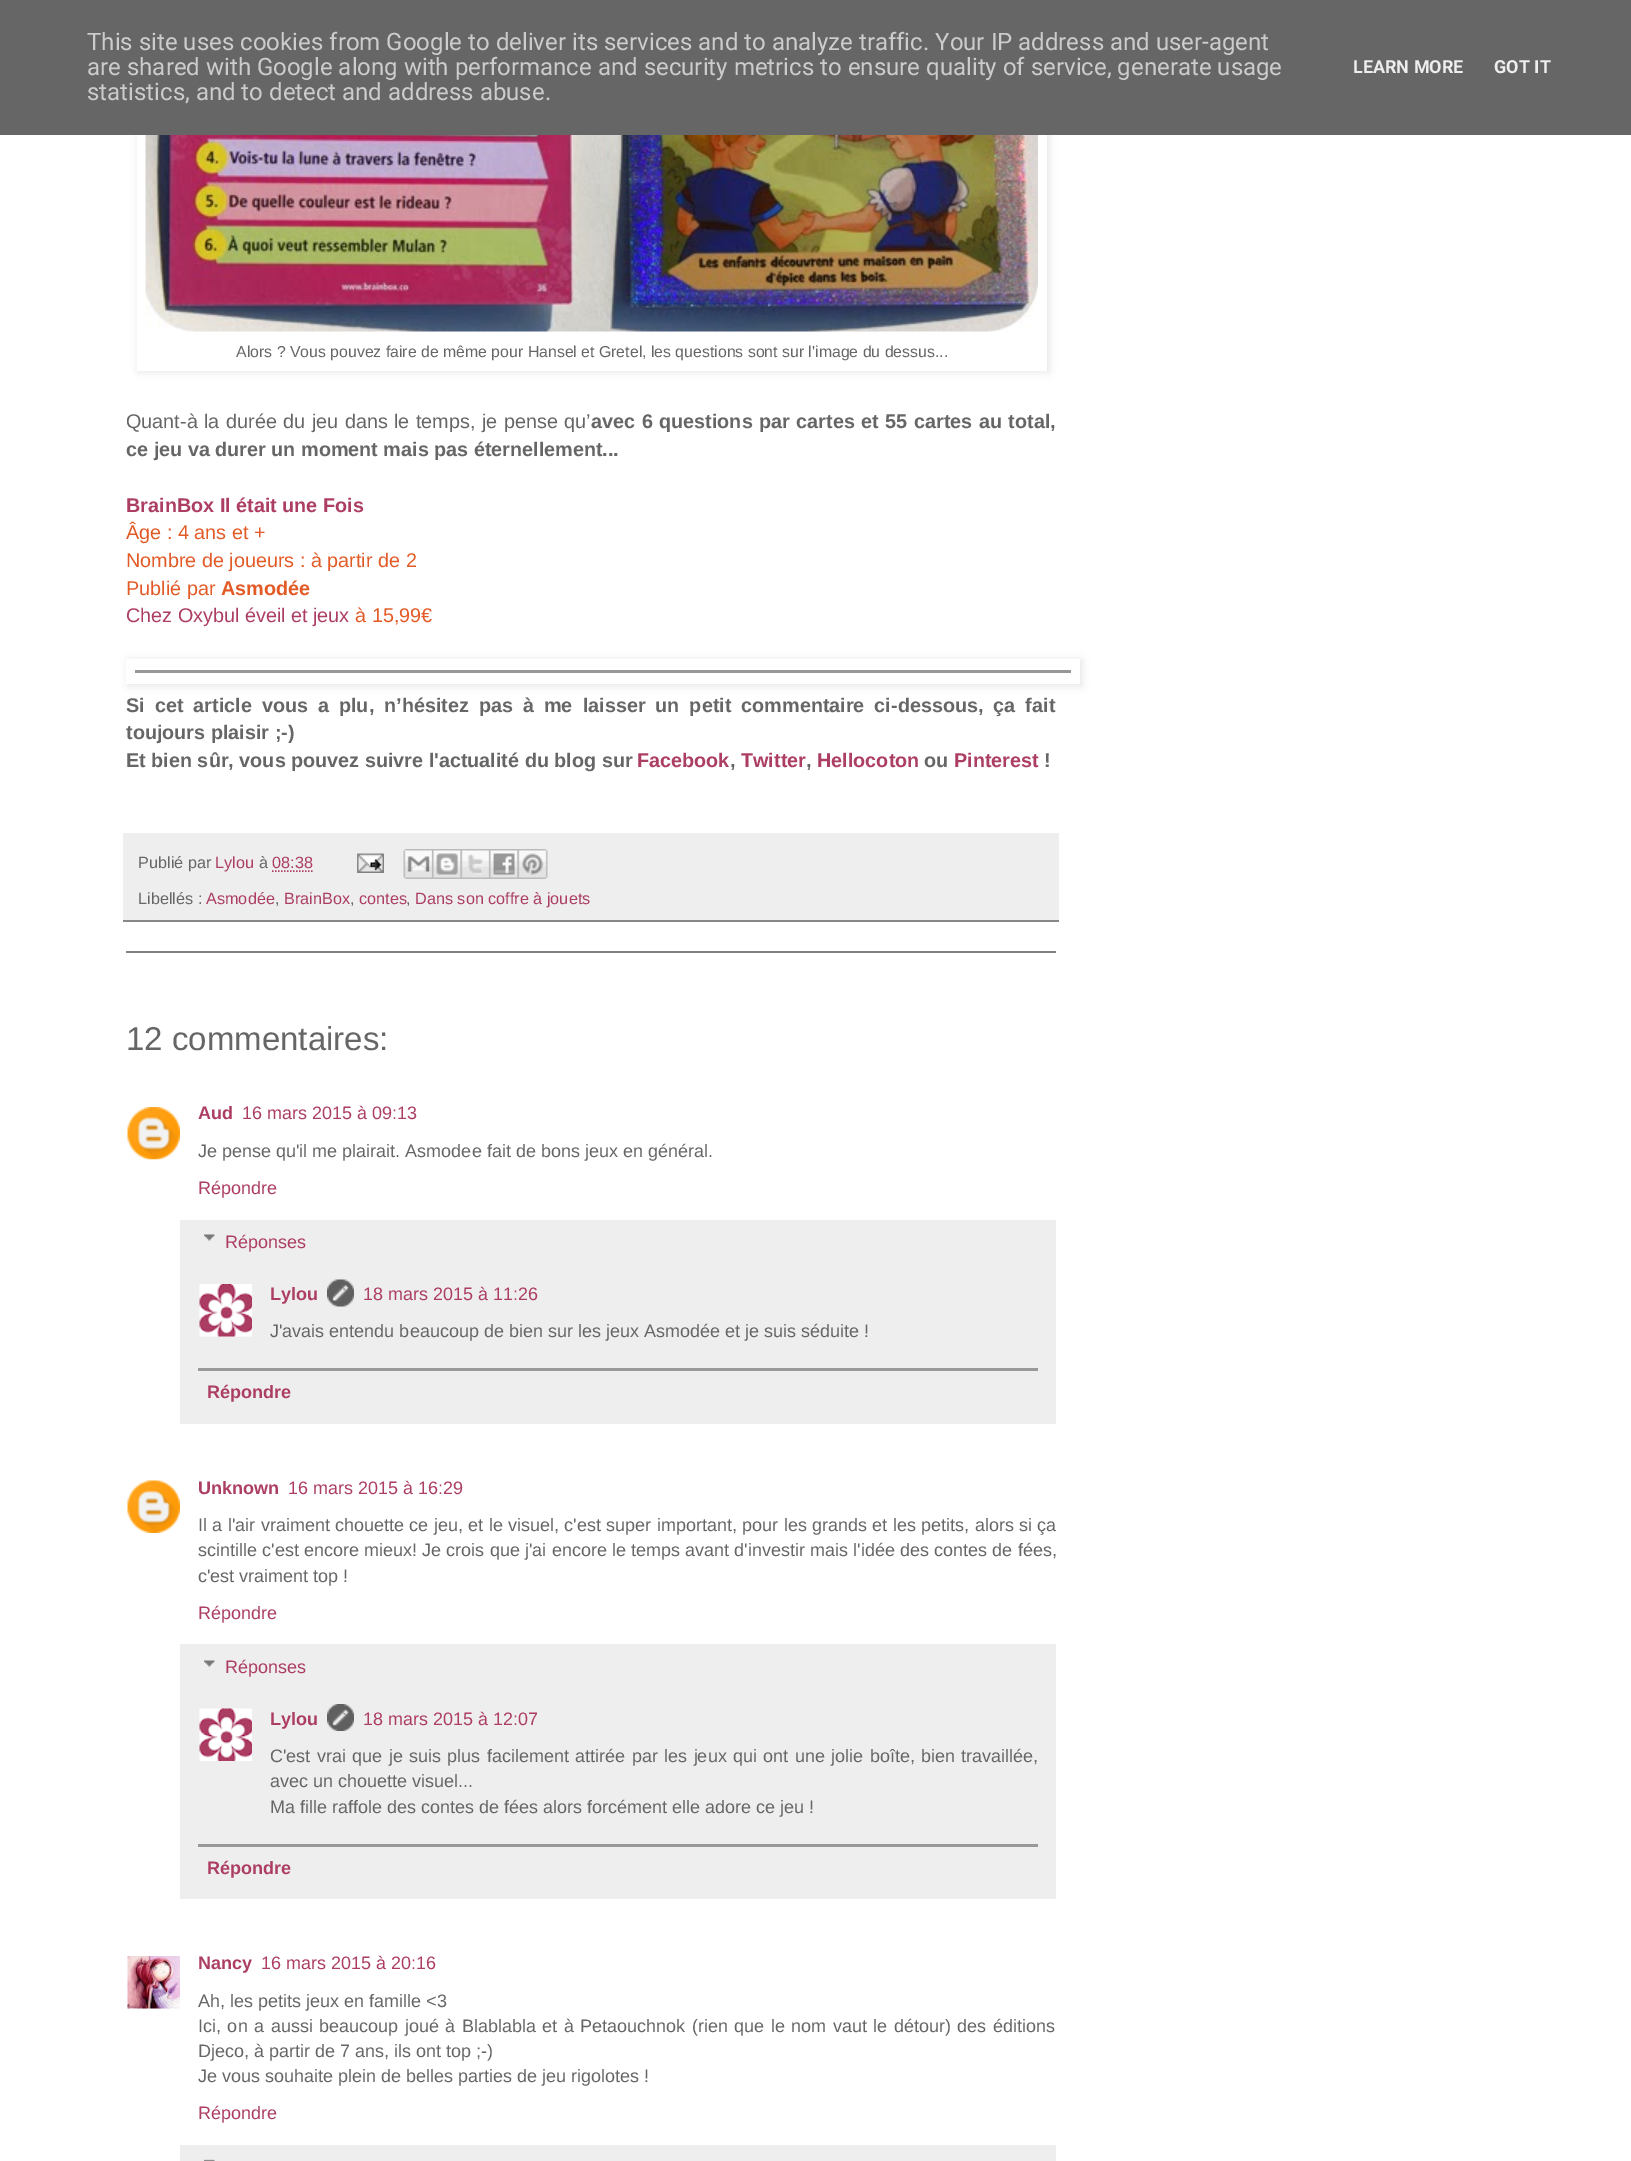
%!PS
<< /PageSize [1631 2161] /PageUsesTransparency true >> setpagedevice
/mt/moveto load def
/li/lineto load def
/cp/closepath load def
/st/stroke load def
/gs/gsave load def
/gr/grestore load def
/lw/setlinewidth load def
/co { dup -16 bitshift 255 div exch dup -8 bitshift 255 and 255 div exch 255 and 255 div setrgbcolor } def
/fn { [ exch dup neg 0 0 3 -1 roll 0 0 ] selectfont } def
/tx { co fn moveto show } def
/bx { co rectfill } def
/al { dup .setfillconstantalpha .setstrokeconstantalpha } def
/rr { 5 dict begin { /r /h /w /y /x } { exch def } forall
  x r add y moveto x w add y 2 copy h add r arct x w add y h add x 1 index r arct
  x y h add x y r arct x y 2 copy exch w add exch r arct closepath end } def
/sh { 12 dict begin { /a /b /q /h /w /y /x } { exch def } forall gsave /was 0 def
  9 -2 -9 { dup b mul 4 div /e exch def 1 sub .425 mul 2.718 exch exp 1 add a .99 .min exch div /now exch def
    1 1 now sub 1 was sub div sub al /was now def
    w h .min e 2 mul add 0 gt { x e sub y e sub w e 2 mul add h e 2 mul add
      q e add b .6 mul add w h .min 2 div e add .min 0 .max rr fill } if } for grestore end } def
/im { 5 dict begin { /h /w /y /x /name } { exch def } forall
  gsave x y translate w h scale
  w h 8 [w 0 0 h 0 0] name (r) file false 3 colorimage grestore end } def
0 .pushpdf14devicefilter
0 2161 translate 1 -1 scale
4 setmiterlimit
0 0 1631 2161 16#FFFFFF bx
gs
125 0 mt 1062 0 li 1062 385 li 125 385 li cp 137 -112 mt 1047 -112 li 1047 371 li 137 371 li cp eoclip newpath
16#000000 co
138 -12 911 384 0 4 .1 sh
gr
0 0 1631 135 16#666666 bx
126 951 930 2 16#808080 bx
(media/1.raw) 145 135 893 197 im
gs
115 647 mt 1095 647 li 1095 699 li 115 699 li cp 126 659 mt 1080 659 li 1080 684 li 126 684 li cp eoclip newpath
16#000000 co
128 660 954 26 0 4 .1 sh
gr
135 670 936 3 16#979797 bx
123 833 936 87 16#EEEEEE bx
123 920 936 2 16#888888 bx
16#AC3E63 co
1.5 lw
[1.5 1.5] 0 setdash
272 871 mt 312.5 871 li st
(media/2.raw) 357 853 27 20 im
(media/3.raw) 403 849 29 30 im
(media/4.raw) 432 849 29 30 im
(media/5.raw) 460 849 29 30 im
(media/6.raw) 489 849 29 30 im
(media/7.raw) 517 849 31 30 im
(media/8.raw) 127 1107 53 53 im
180 1220 876 204 16#EEEEEE bx
(media/9.raw) 204 1234 11 7 im
(media/10.raw) 199 1284 53 53 im
(media/11.raw) 327 1279 27 28 im
198 1368 840 3 16#999999 bx
(media/12.raw) 127 1480 53 53 im
180 1644 876 255 16#EEEEEE bx
(media/9.raw) 204 1660 11 7 im
(media/13.raw) 199 1708 53 53 im
(media/14.raw) 327 1704 27 27 im
198 1844 840 3 16#999999 bx
(media/15.raw) 127 1956 53 53 im
180 2145 876 16 16#EEEEEE bx
(media/16.raw) 204 2159 11 2 im
(This site uses cookies from Google to deliver its services and to analyze traffic. Your IP address and user-agent) 87 50 /Roboto-Regular 24 16#CCCCCC tx
(are shared with Google along with performance and security metrics to ensure quality of service, generate usage) 87 75 /Roboto-Regular 24 16#CCCCCC tx
(statistics, and to detect and address abuse.) 87 100 /Roboto-Regular 24 16#CCCCCC tx
(LEARN MORE) 1353 73 /Roboto-Bold 18 16#EEEEEE tx
(GOT IT) 1494 73 /Roboto-Bold 18 16#EEEEEE tx
(Alors ? Vous pouvez faire de même pour Hansel et Gretel, les questions sont sur l'image du dessus...) 236 357 /LiberationSans-Regular 15.85 16#666666 tx
/LiberationSans-Regular 19.8 fn
126 428 mt 1 0 32 (Quant-à la durée du jeu dans le temps, je pense qu’) widthshow
/LiberationSans-Bold 19.8 fn
591 428 mt 1 0 32 (avec 6 questions par cartes et 55 cartes au total,) widthshow
(ce jeu va durer un moment mais pas éternellement...) 126 456 /LiberationSans-Bold 19.8 16#666666 tx
(BrainBox Il était une Fois) 126 512 /LiberationSans-Bold 19.8 16#AC3E63 tx
(Âge : 4 ans et +) 126 539 /LiberationSans-Regular 19.8 16#E25A26 tx
(Nombre de joueurs : à partir de 2) 126 567 /LiberationSans-Regular 19.8 16#E25A26 tx
(Publié par) 126 595 /LiberationSans-Regular 19.8 16#E25A26 tx
(Asmodée) 221 595 /LiberationSans-Bold 19.8 16#E25A26 tx
(Chez Oxybul éveil et jeux) 126 622 /LiberationSans-Regular 19.8 16#AC3E63 tx
(à 15,99€) 355 622 /LiberationSans-Regular 19.8 16#E25A26 tx
/LiberationSans-Bold 19.8 fn
16#666666 co
126 712 mt 4.5 0 32 (Si cet article vous a plu, n’hésitez pas à me laisser un petit commentaire ci-dessous, ça fait) widthshow
(toujours plaisir ;-\)) 126 739 /LiberationSans-Bold 19.8 16#666666 tx
(Et bien sûr, vous pouvez suivre l'actualité du blog sur) 126 767 /LiberationSans-Bold 19.8 16#666666 tx
(Facebook) 637 767 /LiberationSans-Bold 19.8 16#AC3E63 tx
(,) 730 767 /LiberationSans-Bold 19.8 16#666666 tx
(Twitter) 741 767 /LiberationSans-Bold 19.8 16#AC3E63 tx
(,) 806 767 /LiberationSans-Bold 19.8 16#666666 tx
(Hellocoton) 817 767 /LiberationSans-Bold 19.8 16#AC3E63 tx
(ou) 924 767 /LiberationSans-Bold 19.8 16#666666 tx
(Pinterest) 954 767 /LiberationSans-Bold 19.8 16#AC3E63 tx
(!) 1044 767 /LiberationSans-Bold 19.8 16#666666 tx
(Publié par) 138 868 /LiberationSans-Regular 16.25 16#666666 tx
(Lylou) 215 868 /LiberationSans-Regular 16.25 16#AC3E63 tx
(à) 259 868 /LiberationSans-Regular 16.25 16#666666 tx
(08:38) 272 868 /LiberationSans-Regular 16.25 16#AC3E63 tx
(Libellés :) 138 904 /LiberationSans-Regular 16.25 16#666666 tx
(Asmodée) 206 904 /LiberationSans-Regular 16.25 16#AC3E63 tx
(,) 275 904 /LiberationSans-Regular 16.25 16#666666 tx
(BrainBox) 284 904 /LiberationSans-Regular 16.25 16#AC3E63 tx
(,) 350 904 /LiberationSans-Regular 16.25 16#666666 tx
(contes) 359 904 /LiberationSans-Regular 16.25 16#AC3E63 tx
(,) 406 904 /LiberationSans-Regular 16.25 16#666666 tx
(Dans son coffre à jouets) 415 904 /LiberationSans-Regular 16.25 16#AC3E63 tx
(12 commentaires:) 126 1050 /LiberationSans-Regular 33 16#666666 tx
(Aud) 198 1119 /LiberationSans-Bold 18 16#AC3E63 tx
(16 mars 2015 à 09:13) 242 1119 /LiberationSans-Regular 18 16#AC3E63 tx
(Je pense qu'il me plairait. Asmodee fait de bons jeux en général.) 198 1157 /LiberationSans-Regular 18 16#666666 tx
(Répondre) 198 1194 /LiberationSans-Regular 18 16#AC3E63 tx
(Réponses) 225 1248 /LiberationSans-Regular 18 16#AC3E63 tx
(Lylou) 270 1300 /LiberationSans-Bold 18 16#AC3E63 tx
(18 mars 2015 à 11:26) 363 1300 /LiberationSans-Regular 18 16#AC3E63 tx
(J'avais entendu beaucoup de bien sur les jeux Asmodée et je suis séduite !) 270 1337 /LiberationSans-Regular 18 16#666666 tx
(Répondre) 207 1398 /LiberationSans-Bold 18 16#AC3E63 tx
(Unknown) 198 1494 /LiberationSans-Bold 18 16#AC3E63 tx
(16 mars 2015 à 16:29) 288 1494 /LiberationSans-Regular 18 16#AC3E63 tx
16#666666 co
198 1531 mt .4 0 32 (Il a l'air vraiment chouette ce jeu, et le visuel, c'est super important, pour les grands et les petits, alors si ça) widthshow
198 1556 mt .2 0 32 (scintille c'est encore mieux! Je crois que j'ai encore le temps avant d'investir mais l'idée des contes de fées,) widthshow
(c'est vraiment top !) 198 1582 /LiberationSans-Regular 18 16#666666 tx
(Répondre) 198 1619 /LiberationSans-Regular 18 16#AC3E63 tx
(Réponses) 225 1673 /LiberationSans-Regular 18 16#AC3E63 tx
(Lylou) 270 1725 /LiberationSans-Bold 18 16#AC3E63 tx
(18 mars 2015 à 12:07) 363 1725 /LiberationSans-Regular 18 16#AC3E63 tx
16#666666 co
270 1762 mt 1.4 0 32 (C'est vrai que je suis plus facilement attirée par les jeux qui ont une jolie boîte, bien travaillée,) widthshow
(avec un chouette visuel...) 270 1787 /LiberationSans-Regular 18 16#666666 tx
(Ma fille raffole des contes de fées alors forcément elle adore ce jeu !) 270 1813 /LiberationSans-Regular 18 16#666666 tx
(Répondre) 207 1874 /LiberationSans-Bold 18 16#AC3E63 tx
(Nancy) 198 1969 /LiberationSans-Bold 18 16#AC3E63 tx
(16 mars 2015 à 20:16) 261 1969 /LiberationSans-Regular 18 16#AC3E63 tx
(Ah, les petits jeux en famille <3) 198 2007 /LiberationSans-Regular 18 16#666666 tx
198 2032 mt 1.5 0 32 (Ici, on a aussi beaucoup joué à Blablabla et à Petaouchnok \(rien que le nom vaut le détour\) des éditions) widthshow
(Djeco, à partir de 7 ans, ils ont top ;-\)) 198 2057 /LiberationSans-Regular 18 16#666666 tx
(Je vous souhaite plein de belles parties de jeu rigolotes !) 198 2082 /LiberationSans-Regular 18 16#666666 tx
(Répondre) 198 2119 /LiberationSans-Regular 18 16#AC3E63 tx
.poppdf14devicefilter showpage
